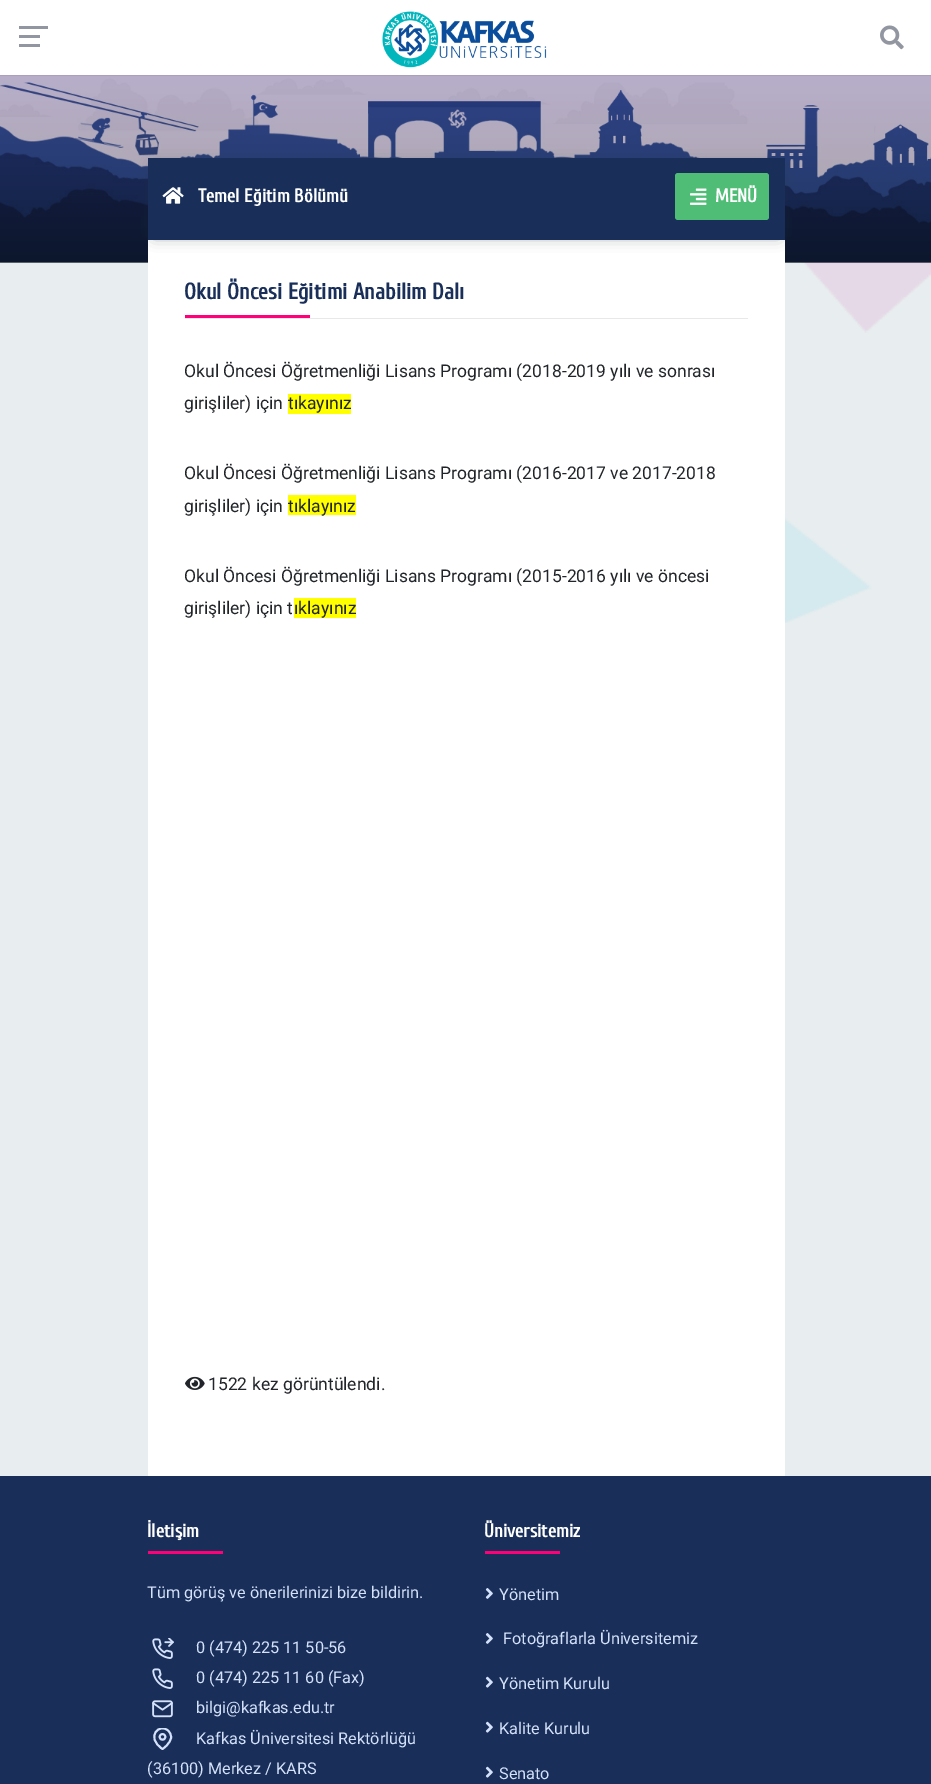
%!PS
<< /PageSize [931 1784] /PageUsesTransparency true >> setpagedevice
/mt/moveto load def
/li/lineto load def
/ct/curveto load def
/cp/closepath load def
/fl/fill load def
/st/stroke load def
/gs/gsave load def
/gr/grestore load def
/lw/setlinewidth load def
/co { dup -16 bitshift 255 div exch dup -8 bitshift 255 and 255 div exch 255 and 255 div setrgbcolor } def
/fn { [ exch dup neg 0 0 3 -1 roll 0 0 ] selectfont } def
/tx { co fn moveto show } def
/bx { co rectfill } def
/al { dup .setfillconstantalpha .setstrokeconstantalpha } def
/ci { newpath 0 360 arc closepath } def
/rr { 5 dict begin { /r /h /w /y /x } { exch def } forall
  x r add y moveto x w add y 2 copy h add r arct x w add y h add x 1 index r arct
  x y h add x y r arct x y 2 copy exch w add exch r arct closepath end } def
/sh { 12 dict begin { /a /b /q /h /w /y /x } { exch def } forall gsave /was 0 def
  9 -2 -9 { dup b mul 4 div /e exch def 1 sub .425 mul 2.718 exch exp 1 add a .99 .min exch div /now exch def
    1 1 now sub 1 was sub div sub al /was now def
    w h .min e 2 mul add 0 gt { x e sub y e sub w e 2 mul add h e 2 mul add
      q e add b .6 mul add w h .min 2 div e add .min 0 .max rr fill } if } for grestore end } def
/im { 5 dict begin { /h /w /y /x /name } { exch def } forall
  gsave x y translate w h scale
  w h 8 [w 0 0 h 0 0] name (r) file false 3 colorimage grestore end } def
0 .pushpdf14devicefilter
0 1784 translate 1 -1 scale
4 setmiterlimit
0 0 931 1784 16#E8EEEF bx
(media/4.raw) 785 262 146 361 im
(media/3.raw) 0 75 931 188 im
0.3 al
gs 0 75 mt 931 75 li 931 263 li 0 263 li cp clip newpath
<< /ShadingType 2 /ColorSpace /DeviceRGB /Coords [466 75 466 263] /Extend [true true] /Function << /FunctionType 2 /Domain [0 1] /C0 [.192 .153 .514] /C1 [0 0 0] /N 1 >> >> shfill gr
1 al
16#000000 co
0 0 931 75 0 .5 .3 sh
0 0 931 75 16#FFFFFF bx
19 35 21 3 16#9196A0 bx
19 26 29 3 16#9196A0 bx
19 44 21 3 16#9196A0 bx
(media/1.raw) 382 11 165 57 im
(media/2.raw) 880 25 24 25 im
148 240 637 1236 16#FFFFFF bx
16#253342 co
154 166 625 70 0 7.5 .5 sh
148 158 637 82 16#192F59 bx
(media/5.raw) 162 187 22 17 im
16#50BD77 co
675 173 94 47 3 rr fl
(media/6.raw) 690 188 17 17 im
185 318 563 1 16#E8E8E8 bx
185 315 125 3 16#FF0079 bx
288 394 63 20 16#FFFF00 bx
288 495 68 20 16#FFFF00 bx
294 598 62 20 16#FFFF00 bx
(media/7.raw) 185 1376 20 14 im
0 1476 931 308 16#192F59 bx
148 1551 75 3 16#FF0079 bx
(media/8.raw) 152 1638 22 21 im
(media/9.raw) 152 1668 21 21 im
(media/10.raw) 152 1700 21 18 im
gs
148 1728 30 22 rectclip
16#D4E1FA co
1.9 lw
1 setlinecap
1 setlinejoin
171 1737 mt 171 1743.5 162.5 1749 162.5 1749 ct 144.5 1737 160 1722 168.5 1731 ct 170 1732.5 171 1734.5 171 1737 ct cp st
gr
16#D4E1FA co
1.9 lw
162.5 1736.9 2.8 ci st
485 1551 75 3 16#FF0079 bx
(media/11.raw) 485 1588 8 11 im
(media/11.raw) 485 1633 8 11 im
(media/12.raw) 485 1676 8 12 im
(media/12.raw) 485 1721 8 12 im
(media/12.raw) 485 1766 8 12 im
(Temel Eğitim Bölümü) 198 202 /Cuprum-Bold 18.75 16#FFFFFF tx
(MENÜ) 715 202 /Cuprum-Bold 18.75 16#FFFFFF tx
(Okul Öncesi Eğitimi Anabilim Dalı) 184 299 /Cuprum-Bold 22.5 16#192F59 tx
(Okul Öncesi Öğretmenliği Lisans Programı \(2018-2019 yılı ve sonrası) 184 377 /Roboto-Regular 17.5 16#212529 tx
(girişliler\) için) 184 409 /Roboto-Regular 17.5 16#212529 tx
(tıkayınız) 288 409 /Roboto-Regular 17.5 16#212529 tx
(Okul Öncesi Öğretmenliği Lisans Programı \(2016-2017 ve 2017-2018) 184 479 /Roboto-Regular 17.5 16#212529 tx
(girişliler\) için) 184 512 /Roboto-Regular 17.5 16#212529 tx
(tıklayınız) 288 512 /Roboto-Regular 17.5 16#212529 tx
(Okul Öncesi Öğretmenliği Lisans Programı \(2015-2016 yılı ve öncesi) 184 582 /Roboto-Regular 17.5 16#212529 tx
(girişliler\) için t) 184 614 /Roboto-Regular 17.5 16#212529 tx
(ıklayınız) 294 614 /Roboto-Regular 17.5 16#212529 tx
(1522 kez görüntülendi.) 208 1390 /Roboto-Regular 17.5 16#212529 tx
(İletişim) 147 1537 /Cuprum-Bold 18.75 16#FFFFFF tx
(Tüm görüş ve önerilerinizi bize bildirin.) 147 1598 /Roboto-Regular 16.25 16#D4E1FA tx
(0 \(474\) 225 11 50-56) 196 1653 /Roboto-Regular 16.25 16#D4E1FA tx
(0 \(474\) 225 11 60 \(Fax\)) 196 1683 /Roboto-Regular 16.25 16#D4E1FA tx
(bilgi@kafkas.edu.tr) 196 1713 /Roboto-Regular 16.25 16#D4E1FA tx
(Kafkas Üniversitesi Rektörlüğü) 196 1744 /Roboto-Regular 16.25 16#D4E1FA tx
(\(36100\) Merkez / KARS) 147 1774 /Roboto-Regular 16.25 16#D4E1FA tx
(Üniversitemiz) 484 1537 /Cuprum-Bold 18.75 16#FFFFFF tx
(Yönetim) 499 1600 /Roboto-Regular 16.25 16#D4E1FA tx
(Fotoğraflarla Üniversitemiz) 503 1644 /Roboto-Regular 16.25 16#D4E1FA tx
(Yönetim Kurulu) 499 1689 /Roboto-Regular 16.25 16#D4E1FA tx
(Kalite Kurulu) 499 1734 /Roboto-Regular 16.25 16#D4E1FA tx
(Senato) 499 1779 /Roboto-Regular 16.25 16#D4E1FA tx
.poppdf14devicefilter showpage
